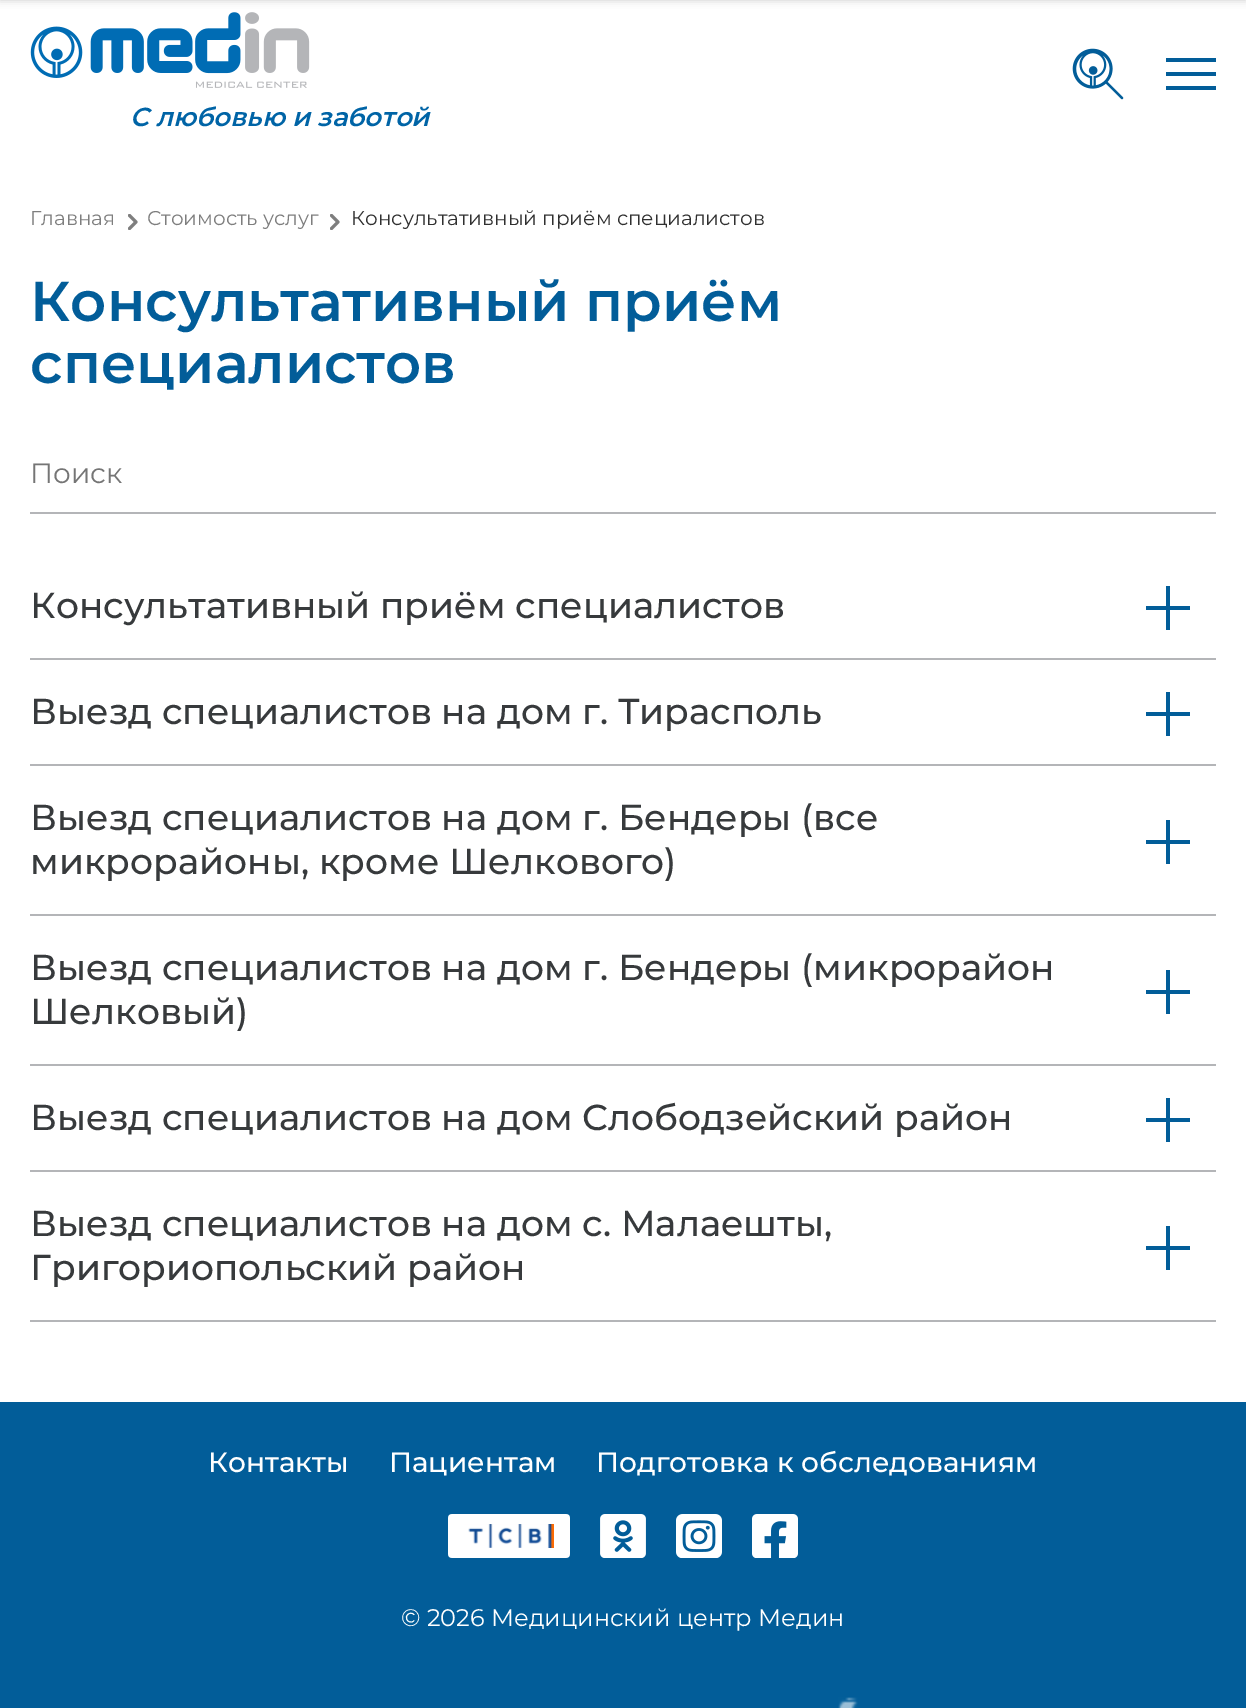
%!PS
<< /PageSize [1246 1708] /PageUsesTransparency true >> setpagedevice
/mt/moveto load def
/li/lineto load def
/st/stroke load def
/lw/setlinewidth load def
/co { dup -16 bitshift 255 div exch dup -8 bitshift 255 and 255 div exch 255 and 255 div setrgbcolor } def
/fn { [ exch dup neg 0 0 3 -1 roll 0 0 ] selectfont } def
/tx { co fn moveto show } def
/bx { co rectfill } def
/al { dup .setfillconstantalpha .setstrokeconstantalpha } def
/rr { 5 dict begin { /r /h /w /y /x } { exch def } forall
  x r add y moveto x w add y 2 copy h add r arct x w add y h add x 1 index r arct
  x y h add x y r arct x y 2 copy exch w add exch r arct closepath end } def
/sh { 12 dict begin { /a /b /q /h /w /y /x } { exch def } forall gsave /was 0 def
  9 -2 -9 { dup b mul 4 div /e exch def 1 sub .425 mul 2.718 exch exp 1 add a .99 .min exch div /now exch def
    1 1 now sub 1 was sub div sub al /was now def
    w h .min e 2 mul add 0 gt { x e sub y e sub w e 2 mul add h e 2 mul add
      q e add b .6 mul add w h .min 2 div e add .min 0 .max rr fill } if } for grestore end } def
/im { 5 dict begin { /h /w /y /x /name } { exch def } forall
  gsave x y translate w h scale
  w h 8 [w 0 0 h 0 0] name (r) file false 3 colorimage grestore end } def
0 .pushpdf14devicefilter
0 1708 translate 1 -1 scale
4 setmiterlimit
0 0 1246 1708 16#FFFFFF bx
(media/1.raw) 1072 48 52 52 im
1166 58 50 4 16#025D99 bx
1166 72 50 4 16#025D99 bx
1166 86 50 4 16#025D99 bx
(media/2.raw) 30 12 280 76 im
16#7E7E7E co
3 lw
1 setlinecap
1 setlinejoin
129.5 215.5 mt 136 222 li 129.5 228.5 li st
331.5 215.5 mt 338 222 li 331.5 228.5 li st
30 512 1186 2 16#B4B5B8 bx
30 658 1186 2 16#B4B5B8 bx
1146 606 44 4 16#025D99 bx
1166 586 4 44 16#025D99 bx
30 764 1186 2 16#B4B5B8 bx
1146 712 44 4 16#025D99 bx
1166 692 4 44 16#025D99 bx
30 914 1186 2 16#B4B5B8 bx
1146 840 44 4 16#025D99 bx
1166 820 4 44 16#025D99 bx
30 1064 1186 2 16#B4B5B8 bx
1146 990 44 4 16#025D99 bx
1166 970 4 44 16#025D99 bx
30 1170 1186 2 16#B4B5B8 bx
1146 1118 44 4 16#025D99 bx
1166 1098 4 44 16#025D99 bx
30 1320 1186 2 16#B4B5B8 bx
1146 1246 44 4 16#025D99 bx
1166 1226 4 44 16#025D99 bx
0 1402 1246 306 16#025D99 bx
16#000000 co
0 -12 1246 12 0 4 .2 sh
(media/3.raw) 448 1514 122 44 im
(media/4.raw) 600 1514 46 44 im
(media/5.raw) 676 1514 46 44 im
(media/6.raw) 752 1514 46 44 im
(media/7.raw) 838 1697 20 11 im
(С любовью и заботой) 130 126 /Montserrat-SemiBoldItalic 26 16#0064A6 tx
(Главная) 30 225 /Montserrat-Regular 20 16#7E7E7E tx
(Стоимость услуг) 147 225 /Montserrat-Regular 20 16#7E7E7E tx
(Консультативный приём специалистов) 351 225 /Montserrat-Regular 20 16#303030 tx
(Консультативный приём) 30 321 /Montserrat-SemiBold 56 16#025D99 tx
(специалистов) 30 383 /Montserrat-SemiBold 56 16#025D99 tx
(Поиск) 30 483 /Montserrat-Regular 28 16#757575 tx
(Консультативный приём специалистов) 30 618 /Montserrat-Medium 36 16#373A3C tx
(Выезд специалистов на дом г. Тирасполь) 30 724 /Montserrat-Medium 36 16#373A3C tx
(Выезд специалистов на дом г. Бендеры \(все) 30 830 /Montserrat-Medium 36 16#373A3C tx
(микрорайоны, кроме Шелкового\)) 30 874 /Montserrat-Medium 36 16#373A3C tx
(Выезд специалистов на дом г. Бендеры \(микрорайон) 30 980 /Montserrat-Medium 36 16#373A3C tx
(Шелковый\)) 30 1024 /Montserrat-Medium 36 16#373A3C tx
(Выезд специалистов на дом Слободзейский район) 30 1130 /Montserrat-Medium 36 16#373A3C tx
(Выезд специалистов на дом с. Малаешты,) 30 1236 /Montserrat-Medium 36 16#373A3C tx
(Григориопольский район) 30 1280 /Montserrat-Medium 36 16#373A3C tx
(Контакты) 208 1472 /Montserrat-Medium 28 16#FFFFFF tx
(Пациентам) 389 1472 /Montserrat-Medium 28 16#FFFFFF tx
(Подготовка к обследованиям) 596 1472 /Montserrat-Medium 28 16#FFFFFF tx
(© 2026 Медицинский центр Медин) 401 1626 /Montserrat-Regular 24 16#FFFFFF tx
.poppdf14devicefilter showpage
